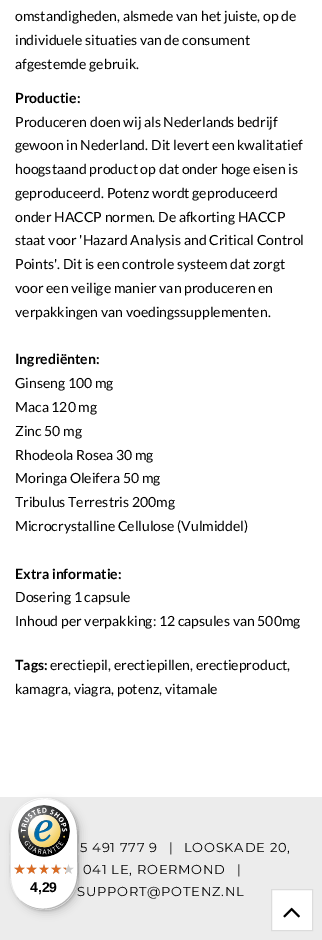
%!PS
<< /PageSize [322 940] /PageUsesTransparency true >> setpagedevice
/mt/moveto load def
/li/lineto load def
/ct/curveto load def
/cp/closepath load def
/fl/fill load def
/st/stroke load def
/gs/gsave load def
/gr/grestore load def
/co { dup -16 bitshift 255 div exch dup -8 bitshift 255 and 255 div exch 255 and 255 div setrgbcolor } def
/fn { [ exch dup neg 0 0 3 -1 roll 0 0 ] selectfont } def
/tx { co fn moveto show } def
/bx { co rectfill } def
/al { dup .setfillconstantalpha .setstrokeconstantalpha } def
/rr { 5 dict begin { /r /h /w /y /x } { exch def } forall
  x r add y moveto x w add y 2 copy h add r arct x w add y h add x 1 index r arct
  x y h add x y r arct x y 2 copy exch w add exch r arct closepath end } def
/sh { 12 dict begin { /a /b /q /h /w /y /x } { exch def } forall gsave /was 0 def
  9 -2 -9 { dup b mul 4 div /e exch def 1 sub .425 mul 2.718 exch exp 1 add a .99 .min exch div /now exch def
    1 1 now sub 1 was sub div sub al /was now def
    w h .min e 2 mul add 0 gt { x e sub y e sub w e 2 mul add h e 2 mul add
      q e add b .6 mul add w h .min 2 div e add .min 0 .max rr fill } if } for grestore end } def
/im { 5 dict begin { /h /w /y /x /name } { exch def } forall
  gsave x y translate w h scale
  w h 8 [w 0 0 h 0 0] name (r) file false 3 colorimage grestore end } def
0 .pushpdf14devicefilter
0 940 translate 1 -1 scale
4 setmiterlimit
0 0 322 940 16#FFFFFF bx
0 797 322 143 16#ECECEC bx
16#FFFFFF co
271.5 889.5 mt 312.5 889.5 li 312.5 930.5 li 271.5 930.5 li cp gs fl gr
16#DCDCDC co
st
(media/1.raw) 283 907 17 11 im
16#000000 co
13 801 68 112 34 4 .15 sh
11 799 68 112 34 1 .15 sh
(omstandigheden, alsmede van het juiste, op de) 15 21 /Lato-Regular 14 16#000000 tx
(individuele situaties van de consument) 15 45 /Lato-Regular 14 16#000000 tx
(afgestemde gebruik.) 15 69 /Lato-Regular 14 16#000000 tx
(Productie:) 15 103 /Lato-Bold 14 16#000000 tx
(Produceren doen wij als Nederlands bedrijf) 15 127 /Lato-Regular 14 16#000000 tx
(gewoon in Nederland. Dit levert een kwalitatief) 15 150 /Lato-Regular 14 16#000000 tx
(hoogstaand product op dat onder hoge eisen is) 15 174 /Lato-Regular 14 16#000000 tx
(geproduceerd. Potenz wordt geproduceerd) 15 198 /Lato-Regular 14 16#000000 tx
(onder HACCP normen. De afkorting HACCP) 15 222 /Lato-Regular 14 16#000000 tx
(staat voor 'Hazard Analysis and Critical Control) 15 245 /Lato-Regular 14 16#000000 tx
(Points'. Dit is een controle systeem dat zorgt) 15 269 /Lato-Regular 14 16#000000 tx
(voor een veilige manier van produceren en) 15 293 /Lato-Regular 14 16#000000 tx
(verpakkingen van voedingssupplementen.) 15 317 /Lato-Regular 14 16#000000 tx
(Ingrediënten:) 15 364 /Lato-Bold 14 16#000000 tx
(Ginseng 100 mg) 15 388 /Lato-Regular 14 16#000000 tx
(Maca 120 mg) 15 412 /Lato-Regular 14 16#000000 tx
(Zinc 50 mg) 15 436 /Lato-Regular 14 16#000000 tx
(Rhodeola Rosea 30 mg) 15 460 /Lato-Regular 14 16#000000 tx
(Moringa Oleifera 50 mg) 15 483 /Lato-Regular 14 16#000000 tx
(Tribulus Terrestris 200mg) 15 507 /Lato-Regular 14 16#000000 tx
(Microcrystalline Cellulose \(Vulmiddel\)) 15 531 /Lato-Regular 14 16#000000 tx
(Extra informatie:) 15 579 /Lato-Bold 14 16#000000 tx
(Dosering 1 capsule) 15 602 /Lato-Regular 14 16#000000 tx
(Inhoud per verpakking: 12 capsules van 500mg) 15 626 /Lato-Regular 14 16#000000 tx
(Tags:) 15 670 /Lato-Bold 14 16#000000 tx
(erectiepil, erectiepillen, erectieproduct,) 50 670 /Lato-Regular 14 16#000000 tx
(kamagra, viagra, potenz, vitamale) 15 694 /Lato-Regular 14 16#000000 tx
/Montserrat-Regular 13 fn
80 852 mt .75 0 (5 491 777 9) ashow
169 852 mt .75 0 (|) ashow
184 852 mt .75 0 (LOOSKADE 20,) ashow
83 874 mt .75 0 (041 LE, ROERMOND) ashow
237 874 mt .75 0 (|) ashow
77 896 mt .75 0 (SUPPORT@POTENZ.NL) ashow
16#FFFFFF co
10 798 68 112 34 rr fl
0.1 al
16#000000 co
45 799 mt 53 799 61 802 67 807 ct 50 792 22 798 13 819 ct 8 829 10 843 10 854 ct 10 869 7 886 19 899 ct 14 893 11 885 11 877 ct 11 833 li 11 814 26 799 45 799 ct cp fl
0.2 al
21 901 mt 38 916 66 910 75 889 ct 80 879 78 865 78 854 ct 78 839 81 822 69 809 ct 79 822 77 838 77 853 ct 77 864 79 878 74 888 ct 66 909 38 915 21 901 ct cp fl
16#323232 co
17 897 mt 24 905 33 910 44 910 ct 63 910 78 895 78 876 ct 78 832 li 78 821 73 812 65 805 ct 72 812 77 821 77 831 ct 77 875 li 77 894 62 909 43 909 ct 33 909 24 904 17 897 ct cp fl
0.3 al
16#FFFFFF co
44 798 mt 63 798 78 813 78 832 ct 78 813 62 798 44 798 ct cp 78 876 mt 78 894 62 910 44 910 ct 63 910 78 895 78 876 ct cp 44 910 mt 25 910 10 894 10 876 ct 10 895 25 910 44 910 ct cp eofill
1 al
(media/2.raw) 18 805 52 52 im
(media/3.raw) 14 864 11 10 im
(media/4.raw) 27 864 10 10 im
(media/5.raw) 39 864 10 10 im
(media/6.raw) 51 864 11 10 im
(media/6.raw) 63 864 11 10 im
(media/7.raw) 14 864 11 10 im
(media/8.raw) 26 864 11 10 im
(media/9.raw) 39 864 10 10 im
(media/10.raw) 51 864 10 10 im
(media/11.raw) 63 867 3 7 im
(4,29) 30 892 /LiberationSans-Bold 14 16#000000 tx
.poppdf14devicefilter showpage
